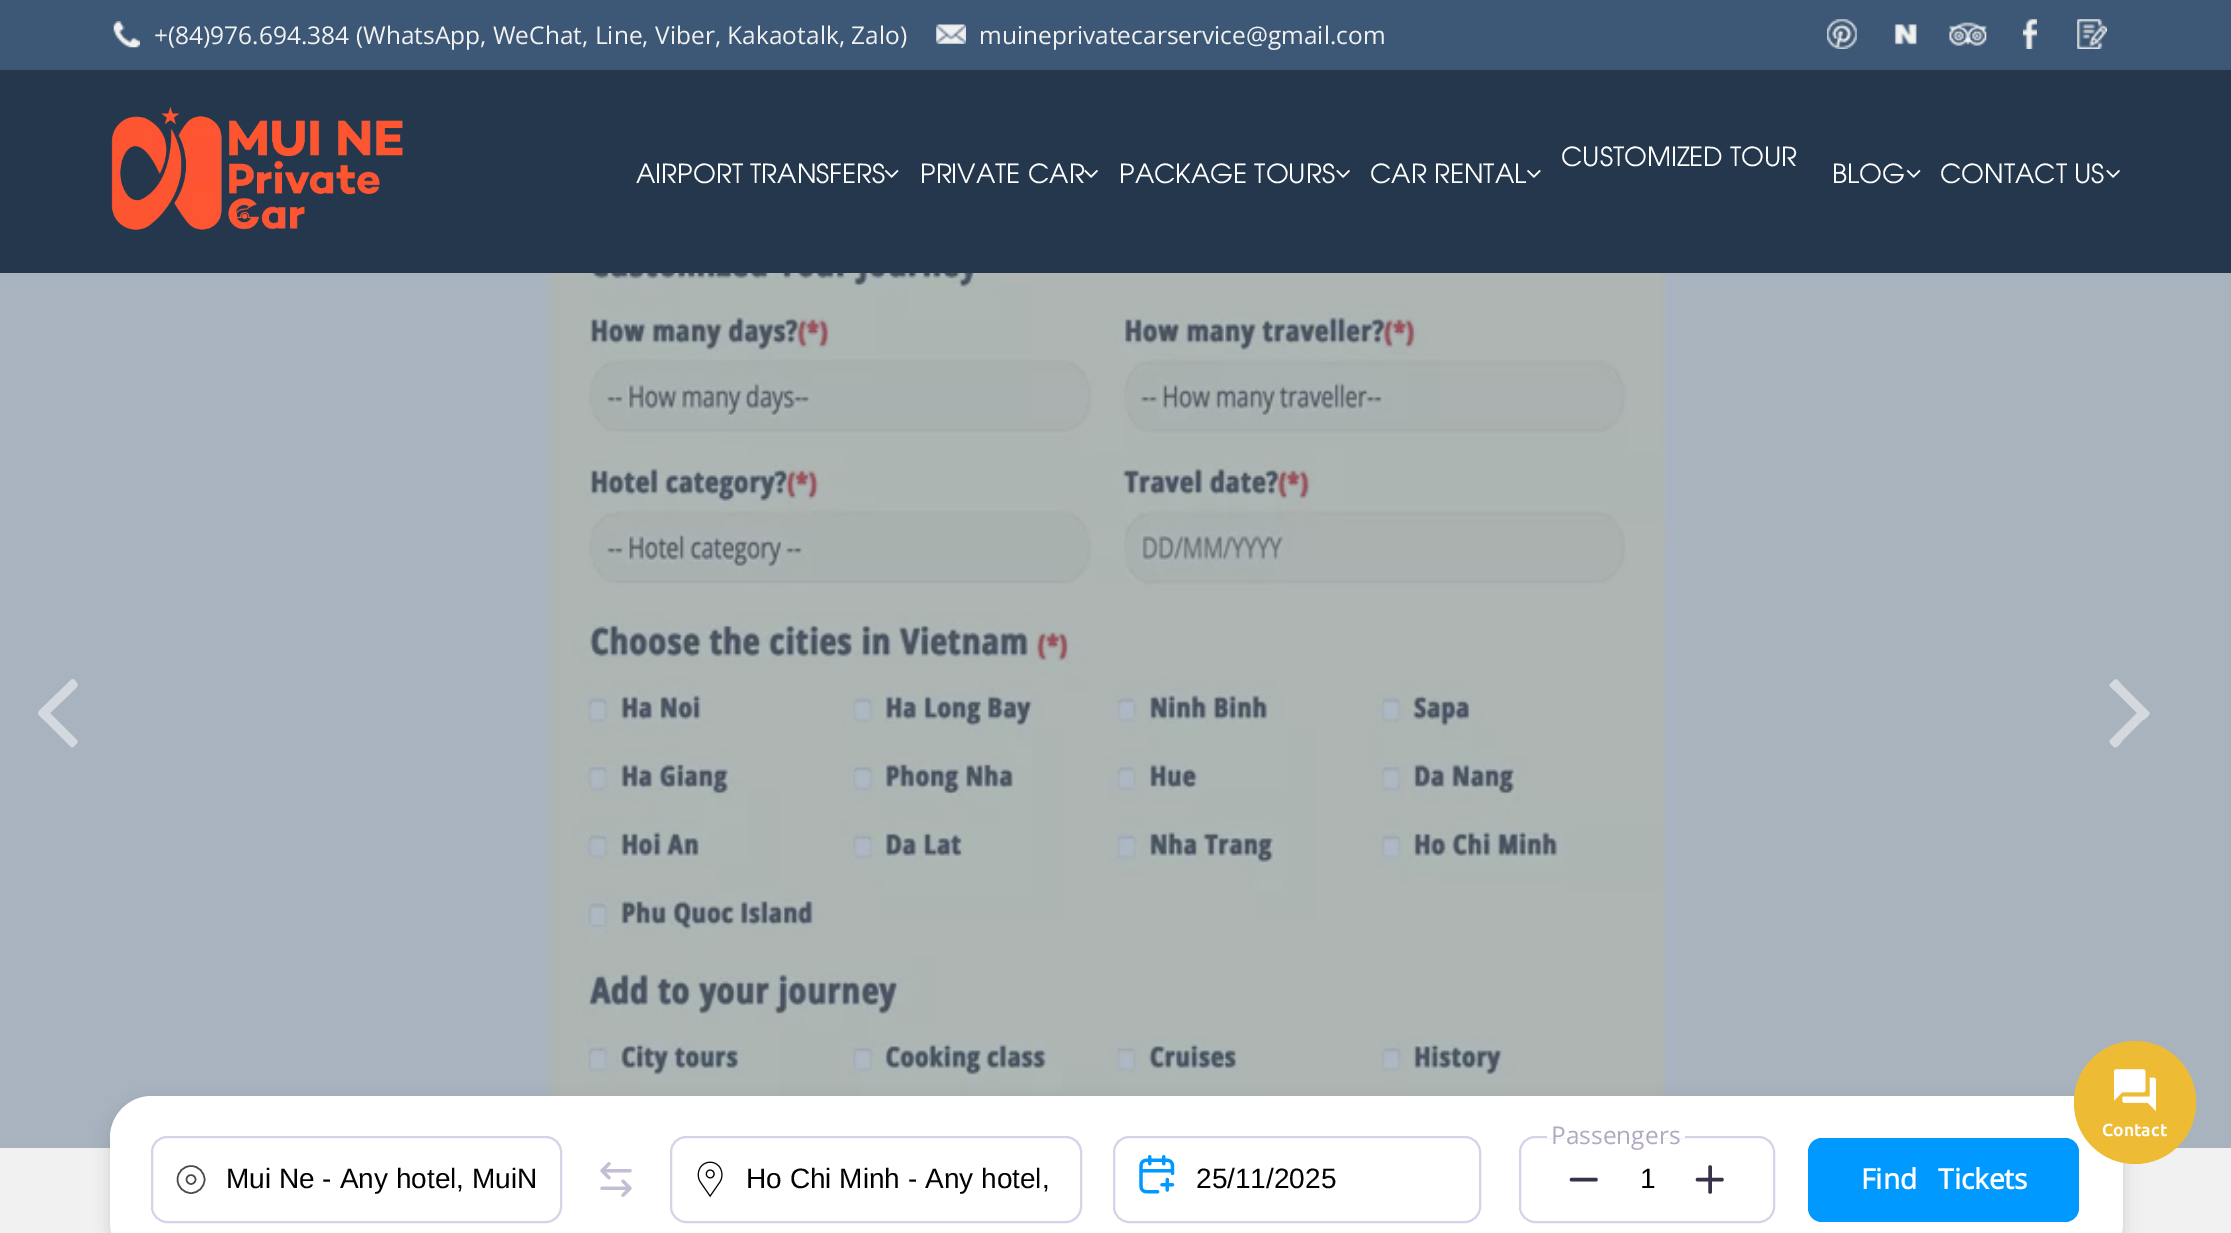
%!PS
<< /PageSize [2231 1233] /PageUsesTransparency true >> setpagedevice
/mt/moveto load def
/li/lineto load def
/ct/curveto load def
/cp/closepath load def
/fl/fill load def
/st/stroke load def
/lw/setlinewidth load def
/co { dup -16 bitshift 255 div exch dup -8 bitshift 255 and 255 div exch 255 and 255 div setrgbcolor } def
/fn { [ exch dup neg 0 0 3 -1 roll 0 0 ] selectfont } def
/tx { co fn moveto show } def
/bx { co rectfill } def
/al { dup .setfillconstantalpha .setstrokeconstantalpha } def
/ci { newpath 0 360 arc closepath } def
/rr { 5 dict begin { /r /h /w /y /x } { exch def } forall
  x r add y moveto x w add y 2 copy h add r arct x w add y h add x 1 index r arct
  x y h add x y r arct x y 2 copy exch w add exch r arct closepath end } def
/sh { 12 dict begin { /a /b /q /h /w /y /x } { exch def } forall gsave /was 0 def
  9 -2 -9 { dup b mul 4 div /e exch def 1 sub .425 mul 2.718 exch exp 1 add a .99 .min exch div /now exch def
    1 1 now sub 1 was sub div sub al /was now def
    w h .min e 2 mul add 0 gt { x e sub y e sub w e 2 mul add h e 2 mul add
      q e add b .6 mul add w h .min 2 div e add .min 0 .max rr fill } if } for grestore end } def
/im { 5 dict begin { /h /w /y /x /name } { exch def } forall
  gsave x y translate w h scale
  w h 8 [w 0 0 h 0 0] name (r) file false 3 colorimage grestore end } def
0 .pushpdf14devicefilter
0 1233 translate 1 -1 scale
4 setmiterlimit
0 0 2231 1233 16#F1F1F1 bx
0 0 2231 70 16#3D5876 bx
(media/1.raw) 113 21 27 27 im
(media/2.raw) 936 24 30 20 im
(media/3.raw) 1827 19 30 30 im
(media/4.raw) 1894 24 23 21 im
(media/5.raw) 1949 22 38 24 im
(media/6.raw) 2023 19 14 30 im
(media/7.raw) 2077 19 30 30 im
0 70 2231 203 16#24374C bx
(media/8.raw) 111 107 292 123 im
(media/9.raw) 884 170 15 8 im
(media/10.raw) 1084 170 14 8 im
(media/10.raw) 1336 170 14 8 im
(media/11.raw) 1527 170 14 8 im
(media/9.raw) 1906 170 15 8 im
(media/10.raw) 2106 170 14 8 im
0 273 2231 875 16#6B7F96 bx
(media/12.raw) 0 273 2231 875 im
16#D3D9DF co
77 683 mt 80 686 73 690 73 691 ct 50 713 li 77 740 li 79 742 76 744 75 745 ct 74 747 72 748 71 747 ct 44 720 li 36 712 36 714 44 706 ct 71 680 li 73 677 76 682 77 683 ct cp fl
16#D4D9DF co
2149 712 mt 2152 714 2144 720 2143 720 ct 2122 741 li 2122 741 2117 749 2114 747 ct 2113 746 2108 742 2110 740 ct 2137 713 li 2115 691 li 2114 690 2108 686 2110 684 ct 2113 681 li 2117 677 2118 681 2122 685 ct cp fl
16#000000 co
110 1103 2013 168 42 9 .13 sh
16#FFFFFF co
110 1096 2013 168 42 rr fl
16#D9D1E7 co
2 lw
152 1137 409 85 15 rr st
16#4A4A4A co
1.5 lw
191 1179.5 13.5 ci st
191 1179.5 4.5 ci st
(media/13.raw) 600 1162 32 35 im
16#D9D1E7 co
2 lw
671 1137 410 85 15 rr st
(media/14.raw) 697 1161 26 37 im
1114 1137 366 85 15 rr st
(media/15.raw) 1139 1155 36 39 im
1520 1137 254 85 15 rr st
1547 1136 138 2 16#FFFFFF bx
16#393147 co
3.5 lw
1 setlinecap
1 setlinejoin
1571.5 1179.5 mt 1596 1179.5 li st
1710 1167 mt 1710 1192 li 1697.5 1179.5 mt 1722 1179.5 li st
16#0099FF co
1808 1138 271 84 14 rr fl
16#EEBC34 co
2074 1041 122 123 61 rr fl
(media/16.raw) 2114 1069 42 42 im
(+\(84\)976.694.384 \(WhatsApp, WeChat, Line, Viber, Kakaotalk, Zalo\)) 154 44 /OpenSans-Regular 24.5 16#F1F1F1 tx
(muineprivatecarservice@gmail.com) 979 44 /OpenSans-Regular 24.5 16#F1F1F1 tx
(CUSTOMIZED TOUR) 1561 166 /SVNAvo-Regular 26.25 16#FFFFFF tx
(AIRPORT TRANSFERS) 636 183 /SVNAvo-Regular 26.25 16#FFFFFF tx
(PRIVATE CAR) 920 183 /SVNAvo-Regular 26.25 16#FFFFFF tx
(PACKAGE TOURS) 1119 183 /SVNAvo-Regular 26.25 16#FFFFFF tx
(CAR RENTAL) 1370 183 /SVNAvo-Regular 26.25 16#FFFFFF tx
(BLOG) 1832 183 /SVNAvo-Regular 26.25 16#FFFFFF tx
(CONTACT US) 1940 183 /SVNAvo-Regular 26.25 16#FFFFFF tx
(Mui Ne - Any hotel, MuiN) 226 1188 /LiberationSans-Regular 28 16#000000 tx
(Ho Chi Minh - Any hotel,) 746 1188 /LiberationSans-Regular 28 16#000000 tx
(25/11/2025) 1196 1188 /LiberationSans-Regular 28 16#000000 tx
(Passengers) 1551 1144 /OpenSans-Regular 24.5 16#B1A9BF tx
(1) 1640 1188 /LiberationSans-Regular 28 16#000000 tx
/OpenSans-Bold 28 fn
16#FFFFFF co
1861 1189 mt 14 0 32 (Find Tickets) widthshow
(Contact) 2102 1136 /Ubuntu-Bold 17.5 16#FFFFFF tx
.poppdf14devicefilter showpage
